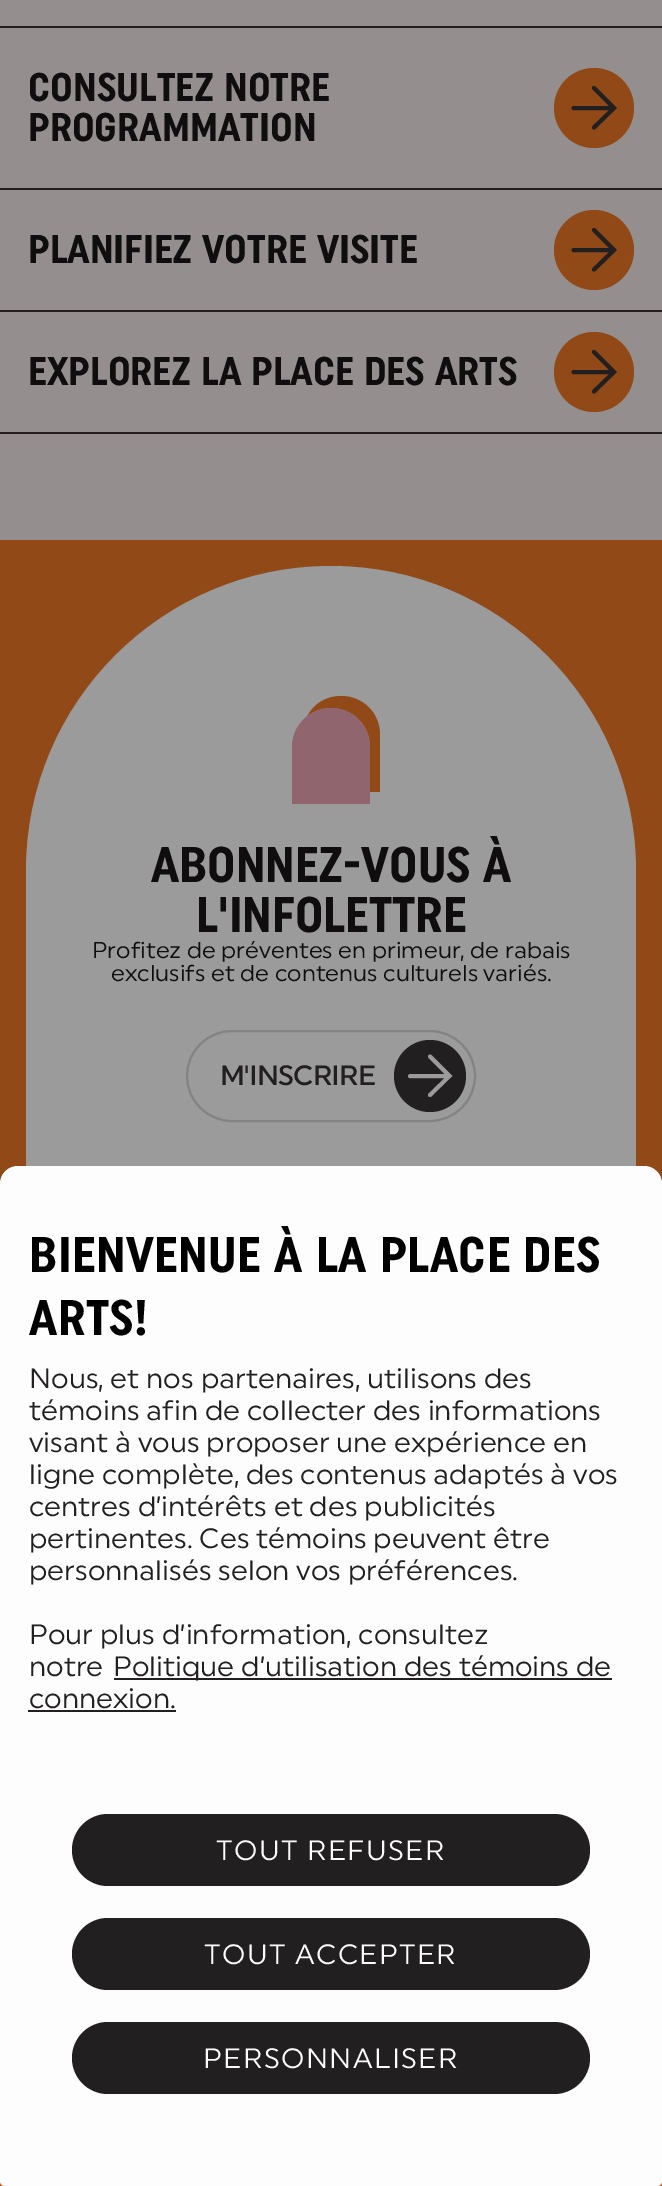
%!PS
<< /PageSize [662 2186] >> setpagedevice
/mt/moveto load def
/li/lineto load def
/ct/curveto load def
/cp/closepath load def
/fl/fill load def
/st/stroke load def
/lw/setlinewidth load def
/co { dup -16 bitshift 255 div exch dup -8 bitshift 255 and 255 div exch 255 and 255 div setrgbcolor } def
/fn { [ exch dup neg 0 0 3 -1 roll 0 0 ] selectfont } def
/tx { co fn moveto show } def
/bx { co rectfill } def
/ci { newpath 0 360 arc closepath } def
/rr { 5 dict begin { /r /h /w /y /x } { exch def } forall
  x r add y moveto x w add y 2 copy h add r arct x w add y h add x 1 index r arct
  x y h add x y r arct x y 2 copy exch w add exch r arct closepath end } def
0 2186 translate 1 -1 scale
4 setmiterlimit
0 0 662 2186 16#948F8E bx
0 26 662 2 16#221F20 bx
16#914917 co
594 108 40 ci fl
16#221F20 co
4 lw
1 setlinecap
573.5 108 mt 613.5 108 li 594 88 mt 614 108 li 594 127.5 li st
0 188 662 2 16#221F20 bx
16#914917 co
594 250 40 ci fl
16#221F20 co
573.5 250 mt 613.5 250 li 594 230 mt 614 250 li 594 269.5 li st
0 310 662 2 16#221F20 bx
0 432 662 2 16#221F20 bx
16#914917 co
594 372 40 ci fl
16#221F20 co
573.5 372 mt 613.5 372 li 594 352 mt 614 372 li 594 391.5 li st
0 2181 662 5 16#C05B13 bx
0 540 662 644 16#914917 bx
16#9C9B9C co
331 566 mt 499.5 566 636 702.5 636 871 ct 636 1174 li 26 1174 li 26 871 li 26 702.5 162.5 566 331 566 ct cp fl
16#914917 co
341 696 mt 326 696 313 704 307 717 ct 313 711 322 708 331 708 ct 353 708 370 725 370 747 ct 370 792 li 380 792 li 380 735 li 380 713 363 696 341 696 ct cp fl
16#91656E co
331 708 mt 352.5 708 370 725.5 370 747 ct 370 804 li 292 804 li 292 747 li 292 725.5 309.5 708 331 708 ct cp fl
16#848383 co
2 lw
0 setlinecap
187 1031 288 90 45 rr st
16#221F20 co
430 1076 36 ci fl
16#9C9B9C co
3.9 lw
1 setlinecap
410 1076 mt 449 1076 li 430 1056.5 mt 449.5 1076 li 430 1095 li st
16#FDFDFD co
18 1166 mt 644 1166 li 654 1166 662 1174 662 1184 ct 662 2181 li 662 2184 660 2186 657 2186 ct 5 2186 li 2 2186 0 2184 0 2181 ct 0 1184 li 0 1174 8 1166 18 1166 ct cp fl
114 1678 498 2 16#221F20 bx
28 1710 148 2 16#221F20 bx
72 1814 518 72 36 rr fl
72 1918 518 72 36 rr fl
72 2022 518 72 36 rr fl
(CONSULTEZ NOTRE) 28 101 /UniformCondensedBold-Bold 40 16#0F0D0E tx
(PROGRAMMATION) 28 141 /UniformCondensedBold-Bold 40 16#0F0D0E tx
(PLANIFIEZ VOTRE VISITE) 28 263 /UniformCondensedBold-Bold 40 16#0F0D0E tx
(EXPLOREZ LA PLACE DES ARTS) 28 385 /UniformCondensedBold-Bold 40 16#0F0D0E tx
(ABONNEZ-VOUS À) 151 882 /UniformCondensedBold-Bold 50 16#0F0D0E tx
(L'INFOLETTRE) 196 932 /UniformCondensedBold-Bold 50 16#0F0D0E tx
(Profitez de préventes en primeur, de rabais) 92 958 /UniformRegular-Regular 22.9 16#0F0D0E tx
(exclusifs et de contenus culturels variés.) 111 981 /UniformRegular-Regular 22.9 16#0F0D0E tx
/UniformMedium-Medium 28 fn
16#221F20 co
220 1085 mt -.75 0 (M'INSCRIRE) ashow
/UniformCondensedBold-Bold 50 fn
16#000000 co
29 1272 mt .5 0 (BIENVENUE À LA PLACE DES) ashow
29 1335 mt .5 0 (ARTS!) ashow
(Nous, et nos partenaires, utilisons des) 29 1388 /UniformRegular-Regular 28 16#221F20 tx
(témoins afin de collecter des informations) 29 1420 /UniformRegular-Regular 28 16#221F20 tx
(visant à vous proposer une expérience en) 29 1452 /UniformRegular-Regular 28 16#221F20 tx
(ligne complète, des contenus adaptés à vos) 29 1484 /UniformRegular-Regular 28 16#221F20 tx
(centres d’intérêts et des publicités) 29 1516 /UniformRegular-Regular 28 16#221F20 tx
(pertinentes. Ces témoins peuvent être) 29 1548 /UniformRegular-Regular 28 16#221F20 tx
(personnalisés selon vos préférences.) 29 1580 /UniformRegular-Regular 28 16#221F20 tx
(Pour plus d’information, consultez) 29 1644 /UniformRegular-Regular 28 16#221F20 tx
(notre) 29 1676 /UniformRegular-Regular 28 16#221F20 tx
(Politique d’utilisation des témoins de) 113 1676 /UniformRegular-Regular 28 16#221F20 tx
(connexion.) 29 1708 /UniformRegular-Regular 28 16#221F20 tx
16#FDFDFD co
216 1860 mt 1.4 0 (TOUT REFUSER) ashow
204 1964 mt 1.4 0 (TOUT ACCEPTER) ashow
203 2068 mt 1.4 0 (PERSONNALISER) ashow
showpage
